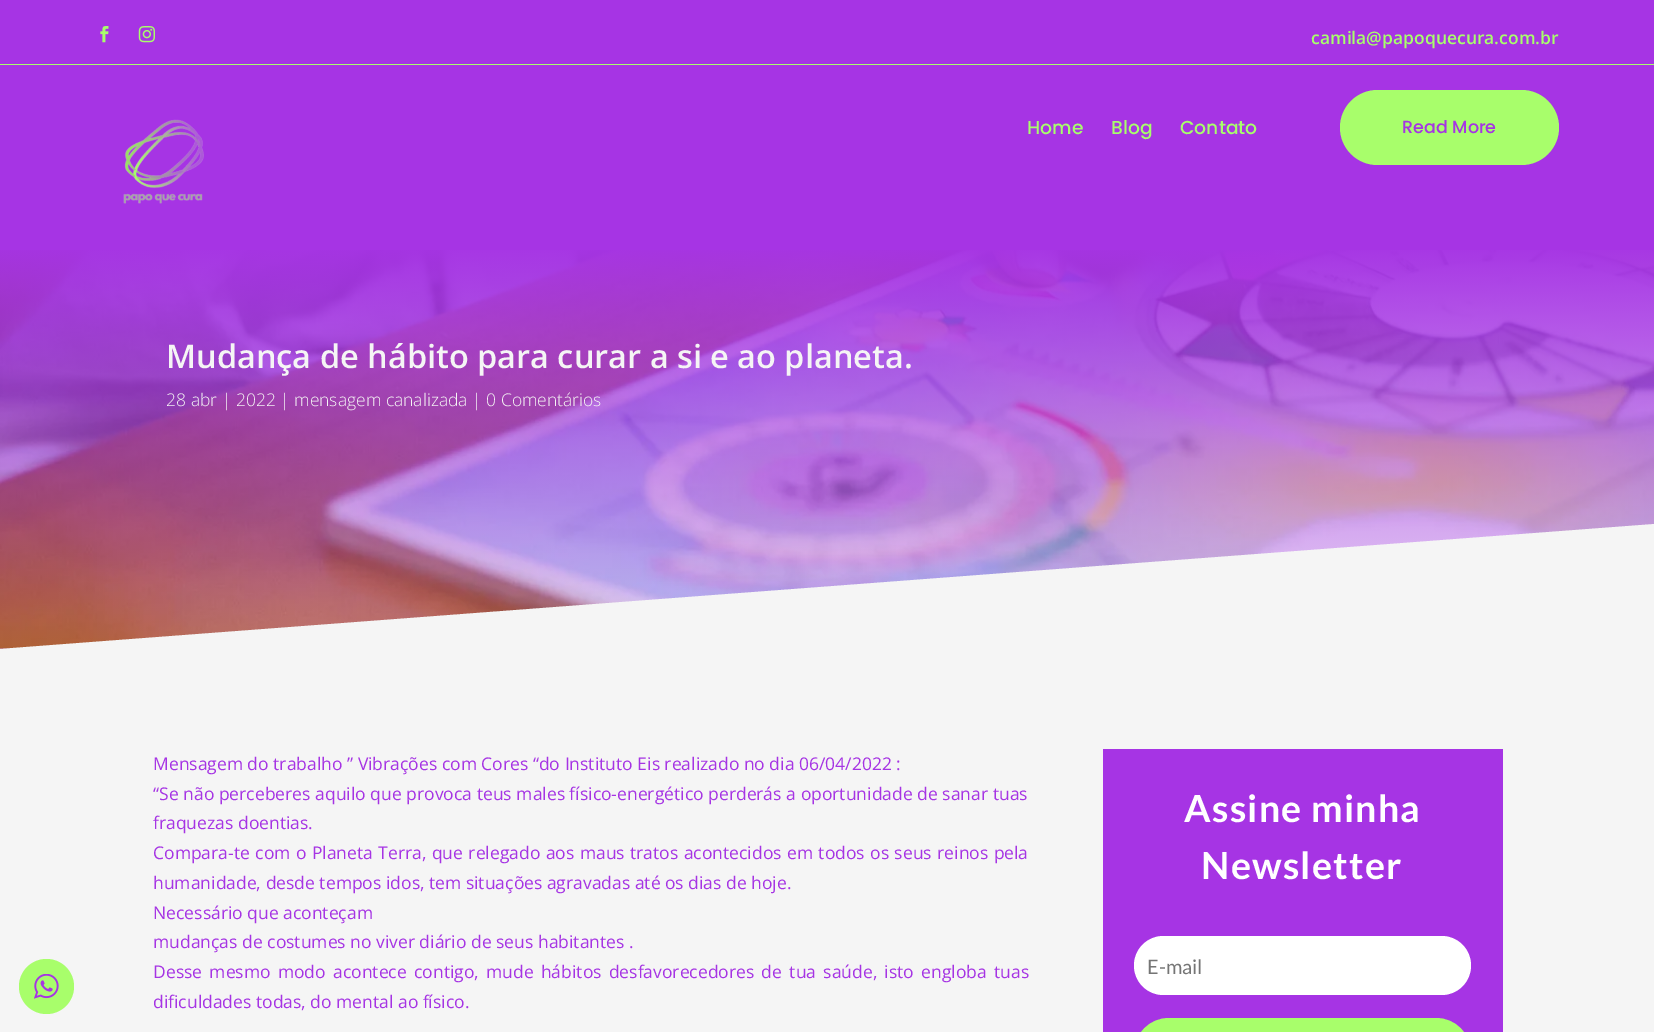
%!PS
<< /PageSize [1654 1032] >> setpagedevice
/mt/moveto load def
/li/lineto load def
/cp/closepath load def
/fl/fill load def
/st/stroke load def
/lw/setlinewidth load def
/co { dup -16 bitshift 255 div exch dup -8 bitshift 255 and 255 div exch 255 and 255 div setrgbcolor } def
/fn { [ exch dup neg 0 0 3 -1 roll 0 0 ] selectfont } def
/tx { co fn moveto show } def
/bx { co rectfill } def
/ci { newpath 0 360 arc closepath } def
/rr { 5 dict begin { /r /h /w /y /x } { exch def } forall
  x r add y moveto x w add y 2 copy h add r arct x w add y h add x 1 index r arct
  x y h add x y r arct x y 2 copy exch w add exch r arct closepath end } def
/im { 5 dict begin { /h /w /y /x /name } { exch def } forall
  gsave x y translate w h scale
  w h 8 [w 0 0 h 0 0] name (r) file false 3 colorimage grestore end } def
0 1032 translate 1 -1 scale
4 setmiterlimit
0 0 1654 1032 16#A634E4 bx
0 649 1654 383 16#F5F5F5 bx
16#A8FE6B co
46.5 986.5 27.5 ci fl
(media/1.raw) 34 974 25 25 im
(media/2.raw) 100 26 9 17 im
(media/3.raw) 138 26 17 17 im
0 64 1654 1 16#A8FE6B bx
(media/4.raw) 123 119 81 85 im
1340 90 219 75 37.5 rr fl
(media/5.raw) 0 250 1654 399 im
16#F5F5F5 co
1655 524 mt 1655 649 li 0 649 li cp fl
1103 749 400 283 16#A634E4 bx
16#FFFFFF co
1134 936 337 59 29.5 rr fl
16#A8FE6B co
15 lw
1141.5 1025.5 322 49 27.5 rr st
(camila@papoquecura.com.br) 1311 44 /OpenSans-SemiBold 17.5 16#A8FE6B tx
(Home) 1027 134 /Poppins-Medium 18.75 16#A8FE6B tx
(Blog) 1111 134 /Poppins-Medium 18.75 16#A8FE6B tx
(Contato) 1180 134 /Poppins-Medium 18.75 16#A8FE6B tx
(Read More) 1402 133 /Poppins-Medium 17.5 16#A634E4 tx
(Mudança de hábito para curar a si e ao planeta.) 166 368 /OpenSans-SemiBold 32.5 16#F5F5F5 tx
(28 abr | 2022 | mensagem canalizada | 0 Comentários) 166 406 /OpenSans-Light 17.5 16#F5F5F5 tx
(Mensagem do trabalho ” Vibrações com Cores “do Instituto Eis realizado no dia 06/04/2022 :) 153 770 /OpenSans-Regular 17.5 16#A634E4 tx
153 800 mt .1 0 32 (“Se não perceberes aquilo que provoca teus males físico-energético perderás a oportunidade de sanar tuas) widthshow
(fraquezas doentias.) 153 829 /OpenSans-Regular 17.5 16#A634E4 tx
153 859 mt .9 0 32 (Compara-te com o Planeta Terra, que relegado aos maus tratos acontecidos em todos os seus reinos pela) widthshow
(humanidade, desde tempos idos, tem situações agravadas até os dias de hoje.) 153 889 /OpenSans-Regular 17.5 16#A634E4 tx
(Necessário que aconteçam) 153 919 /OpenSans-Regular 17.5 16#A634E4 tx
(mudanças de costumes no viver diário de seus habitantes .) 153 948 /OpenSans-Regular 17.5 16#A634E4 tx
153 978 mt 2.75 0 32 (Desse mesmo modo acontece contigo, mude hábitos desfavorecedores de tua saúde, isto engloba tuas) widthshow
(dificuldades todas, do mental ao físico.) 153 1008 /OpenSans-Regular 17.5 16#A634E4 tx
/Lato-Bold 37.5 fn
16#FFFFFF co
1184 822 mt 1.25 0 (Assine minha) ashow
1201 879 mt 1.25 0 (Newsletter) ashow
(E-mail) 1147 974 /Lato-Regular 20 16#757575 tx
showpage
